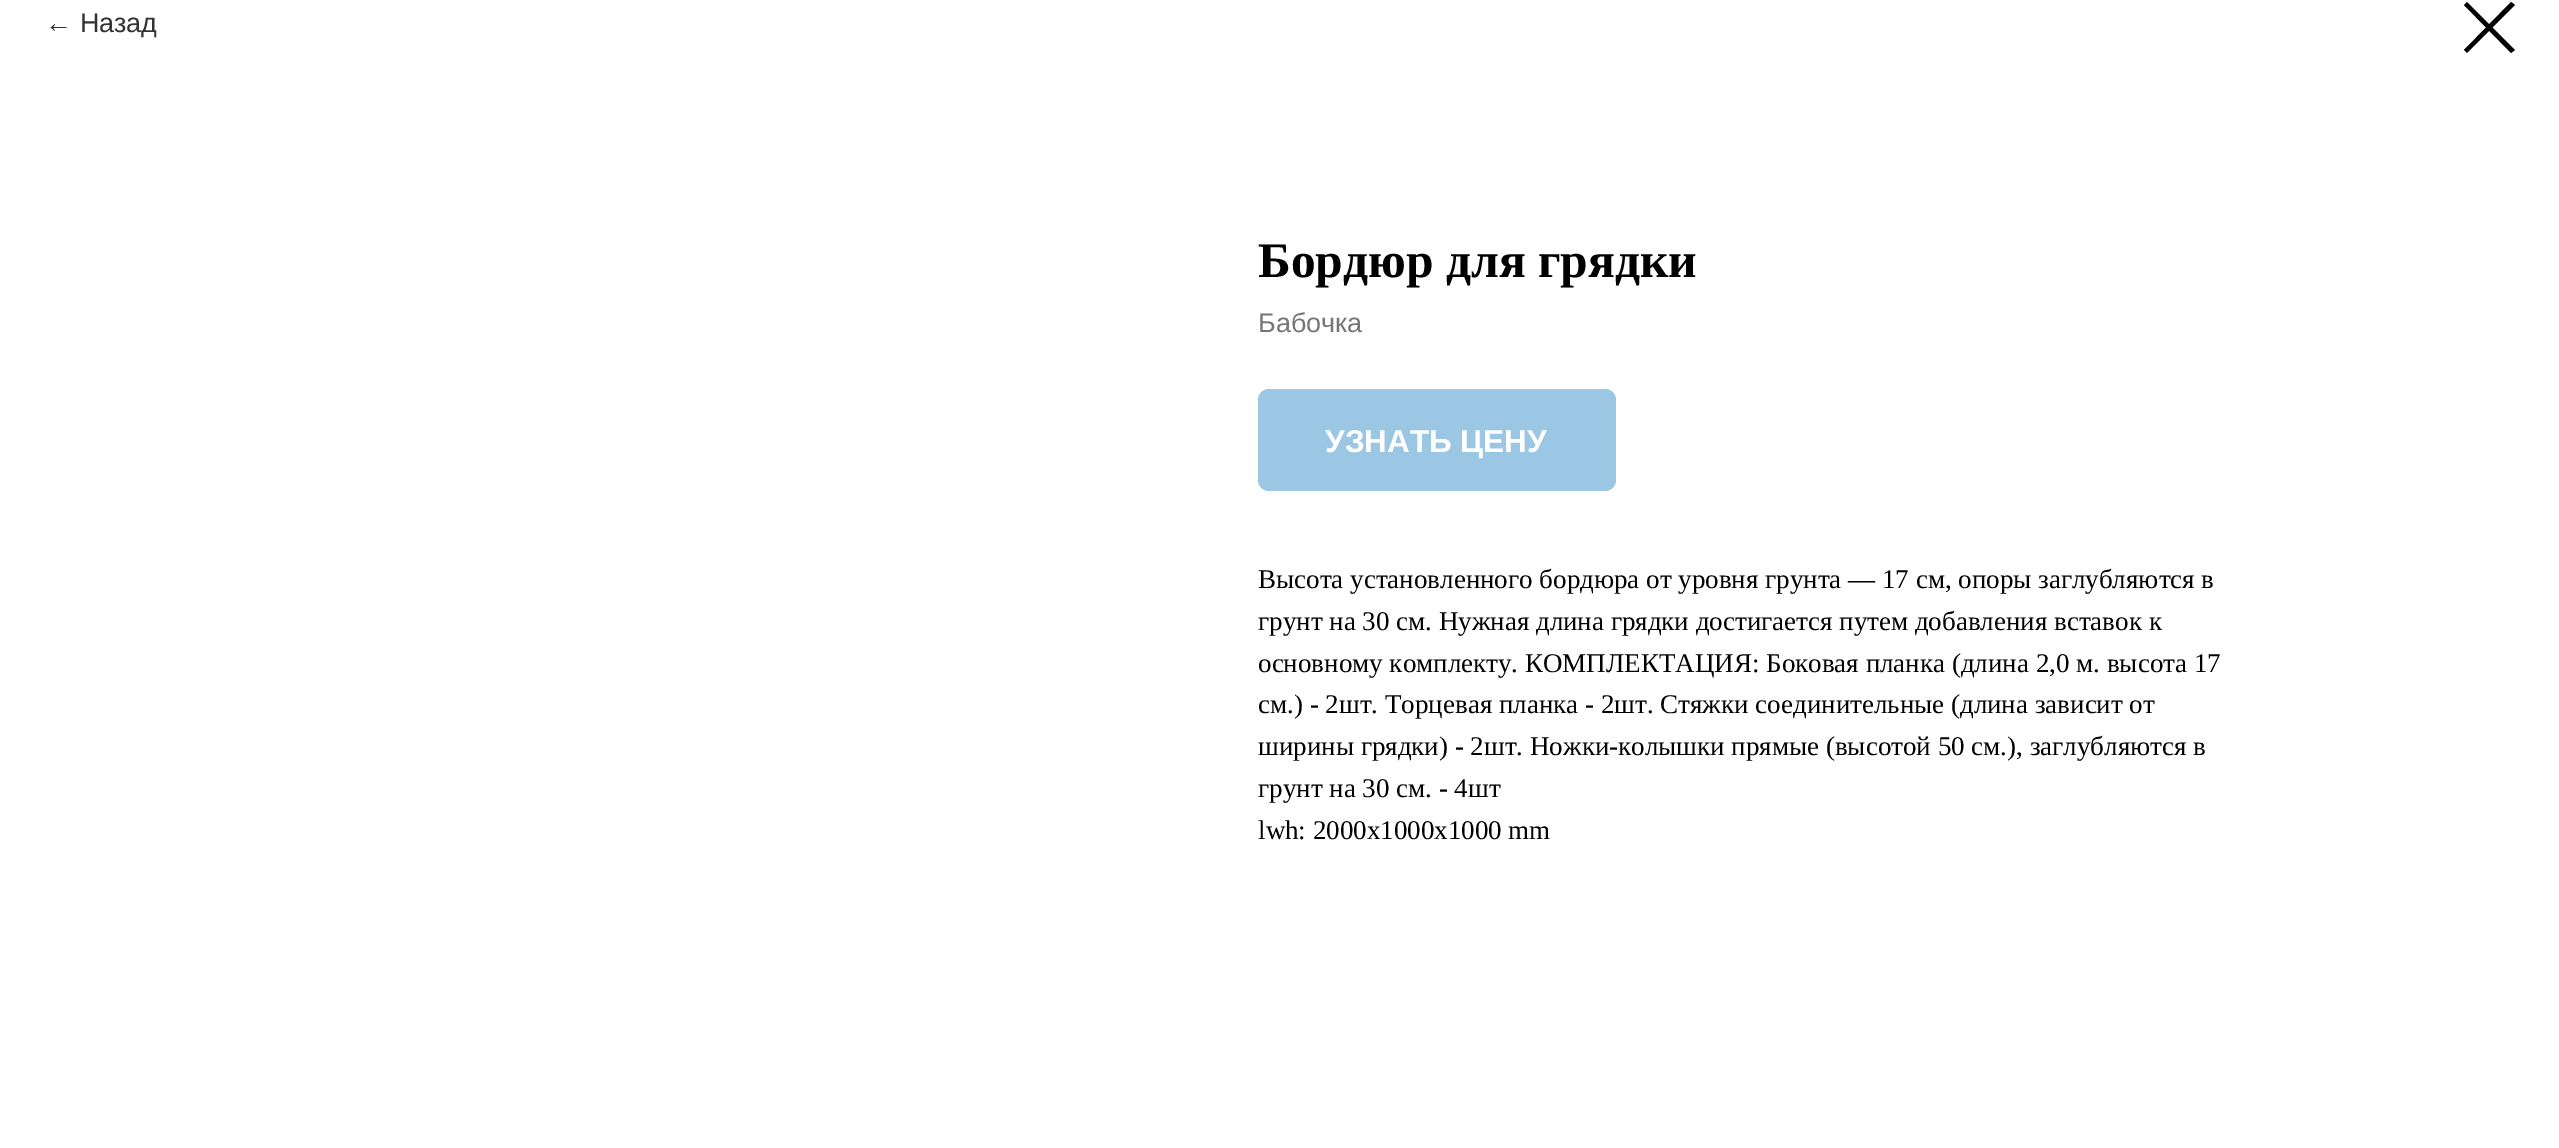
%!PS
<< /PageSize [2559 1148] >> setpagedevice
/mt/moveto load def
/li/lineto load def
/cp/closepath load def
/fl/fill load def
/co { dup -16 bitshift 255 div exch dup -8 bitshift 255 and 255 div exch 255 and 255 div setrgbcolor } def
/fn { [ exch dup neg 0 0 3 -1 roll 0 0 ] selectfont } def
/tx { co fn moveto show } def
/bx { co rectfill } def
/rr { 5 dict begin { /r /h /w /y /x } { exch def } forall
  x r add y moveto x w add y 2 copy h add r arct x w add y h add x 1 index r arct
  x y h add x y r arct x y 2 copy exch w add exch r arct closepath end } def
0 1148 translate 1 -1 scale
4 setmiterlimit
0 0 2559 1148 16#FFFFFF bx
16#000000 co
2464 5 mt 2467 2 li 2515 50 li 2511 53 li cp eofill
2511 2 mt 2515 5 li 2467 53 li 2464 50 li cp eofill
16#9BC7E5 co
1258 389 358 102 11 rr fl
(← Назад) 45 32 /LiberationSans-Regular 27 16#333333 tx
(Бордюр для грядки) 1258 277 /LiberationSerif-Bold 49.5 16#000000 tx
(Бабочка) 1258 332 /LiberationSans-Regular 27 16#777777 tx
(УЗНАТЬ ЦЕНУ) 1325 452 /LiberationSans-Bold 31.5 16#FFFFFF tx
(Высота установленного бордюра от уровня грунта — 17 см, опоры заглубляются в) 1258 588 /LiberationSerif-Regular 27 16#000000 tx
(грунт на 30 см. Нужная длина грядки достигается путем добавления вставок к) 1258 630 /LiberationSerif-Regular 27 16#000000 tx
(основному комплекту. КОМПЛЕКТАЦИЯ: Боковая планка \(длина 2,0 м. высота 17) 1258 672 /LiberationSerif-Regular 27 16#000000 tx
(см.\) - 2шт. Торцевая планка - 2шт. Стяжки соединительные \(длина зависит от) 1258 713 /LiberationSerif-Regular 27 16#000000 tx
(ширины грядки\) - 2шт. Ножки-колышки прямые \(высотой 50 см.\), заглубляются в) 1258 755 /LiberationSerif-Regular 27 16#000000 tx
(грунт на 30 см. - 4шт) 1258 797 /LiberationSerif-Regular 27 16#000000 tx
(lwh: 2000x1000x1000 mm) 1258 839 /LiberationSerif-Regular 27 16#000000 tx
showpage
